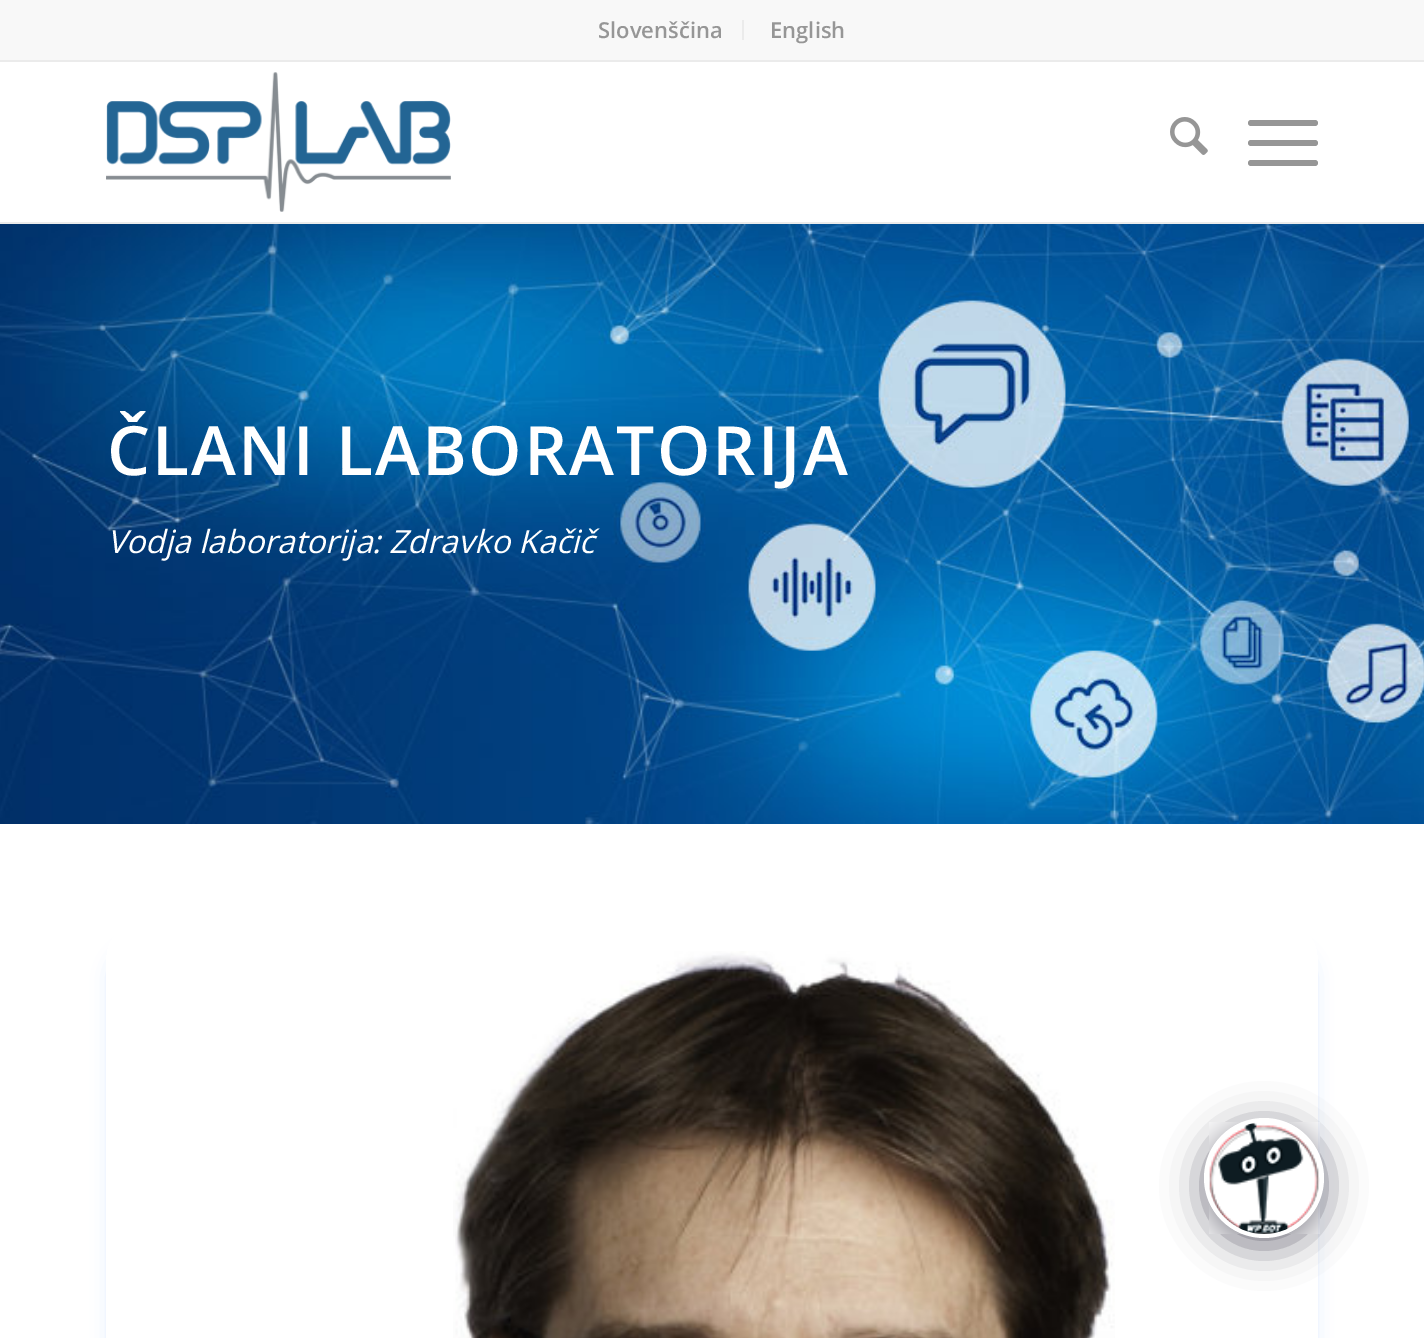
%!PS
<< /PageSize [1424 1338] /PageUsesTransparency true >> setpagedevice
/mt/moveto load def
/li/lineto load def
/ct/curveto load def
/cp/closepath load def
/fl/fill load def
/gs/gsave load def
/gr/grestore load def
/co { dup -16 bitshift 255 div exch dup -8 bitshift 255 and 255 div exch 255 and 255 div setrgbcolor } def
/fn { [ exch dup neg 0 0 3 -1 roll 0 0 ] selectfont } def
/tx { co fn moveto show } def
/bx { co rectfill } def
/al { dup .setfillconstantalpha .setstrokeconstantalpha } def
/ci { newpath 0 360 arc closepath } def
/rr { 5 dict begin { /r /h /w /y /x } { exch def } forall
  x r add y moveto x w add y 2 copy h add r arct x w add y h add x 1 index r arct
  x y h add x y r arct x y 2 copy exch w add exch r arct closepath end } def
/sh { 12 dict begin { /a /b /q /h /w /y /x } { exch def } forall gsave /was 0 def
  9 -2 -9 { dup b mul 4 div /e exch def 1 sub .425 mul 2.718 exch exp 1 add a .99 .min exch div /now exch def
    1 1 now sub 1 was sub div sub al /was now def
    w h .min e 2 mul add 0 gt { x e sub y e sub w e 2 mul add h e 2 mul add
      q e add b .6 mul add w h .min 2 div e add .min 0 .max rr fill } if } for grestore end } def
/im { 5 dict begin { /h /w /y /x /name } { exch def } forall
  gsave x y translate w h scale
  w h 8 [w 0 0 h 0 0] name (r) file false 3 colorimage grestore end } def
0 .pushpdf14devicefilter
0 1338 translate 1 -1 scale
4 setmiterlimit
0 0 1424 1338 16#FFFFFF bx
0 0 1424 60 16#F8F8F8 bx
0 60 1424 2 16#EBEBEB bx
742 20 2 20 16#EBEBEB bx
0 222 1424 2 16#EBEBEB bx
(media/1.raw) 106 72 345 140 im
(media/2.raw) 1170 117 38 38 im
16#969696 co
1248 140 70 6 3 rr fl
1248 120 70 6 3 rr fl
1248 160 70 6 3 rr fl
(media/3.raw) 0 224 1424 600 im
gs
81 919 mt 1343 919 li 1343 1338 li 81 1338 li cp 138 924 mt 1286 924 li 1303.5 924 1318 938.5 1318 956 ct 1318 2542 li 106 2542 li 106 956 li 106 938.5 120.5 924 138 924 ct cp eoclip newpath
16#6799FC co
112 950 1200 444 26 10 .3 sh
gr
(media/4.raw) 453 951 662 387 im
16#767580 co
1204 1126 120 120 60 20 1 sh
16#FFFFFF co
1264 1178 60 ci fl
(media/5.raw) 1209 1122 111 112 im
(Slovenščina) 598 38 /OpenSans-SemiBold 22 16#969696 tx
(English) 770 38 /OpenSans-SemiBold 22 16#969696 tx
/OpenSans-SemiBold 68 fn
16#FFFFFF co
107 475 mt 2 0 (ČLANI LABORATORIJA) ashow
(Vodja laboratorija: Zdravko Kačič) 107 553 /OpenSans-Italic 32 16#FFFFFF tx
.poppdf14devicefilter showpage
